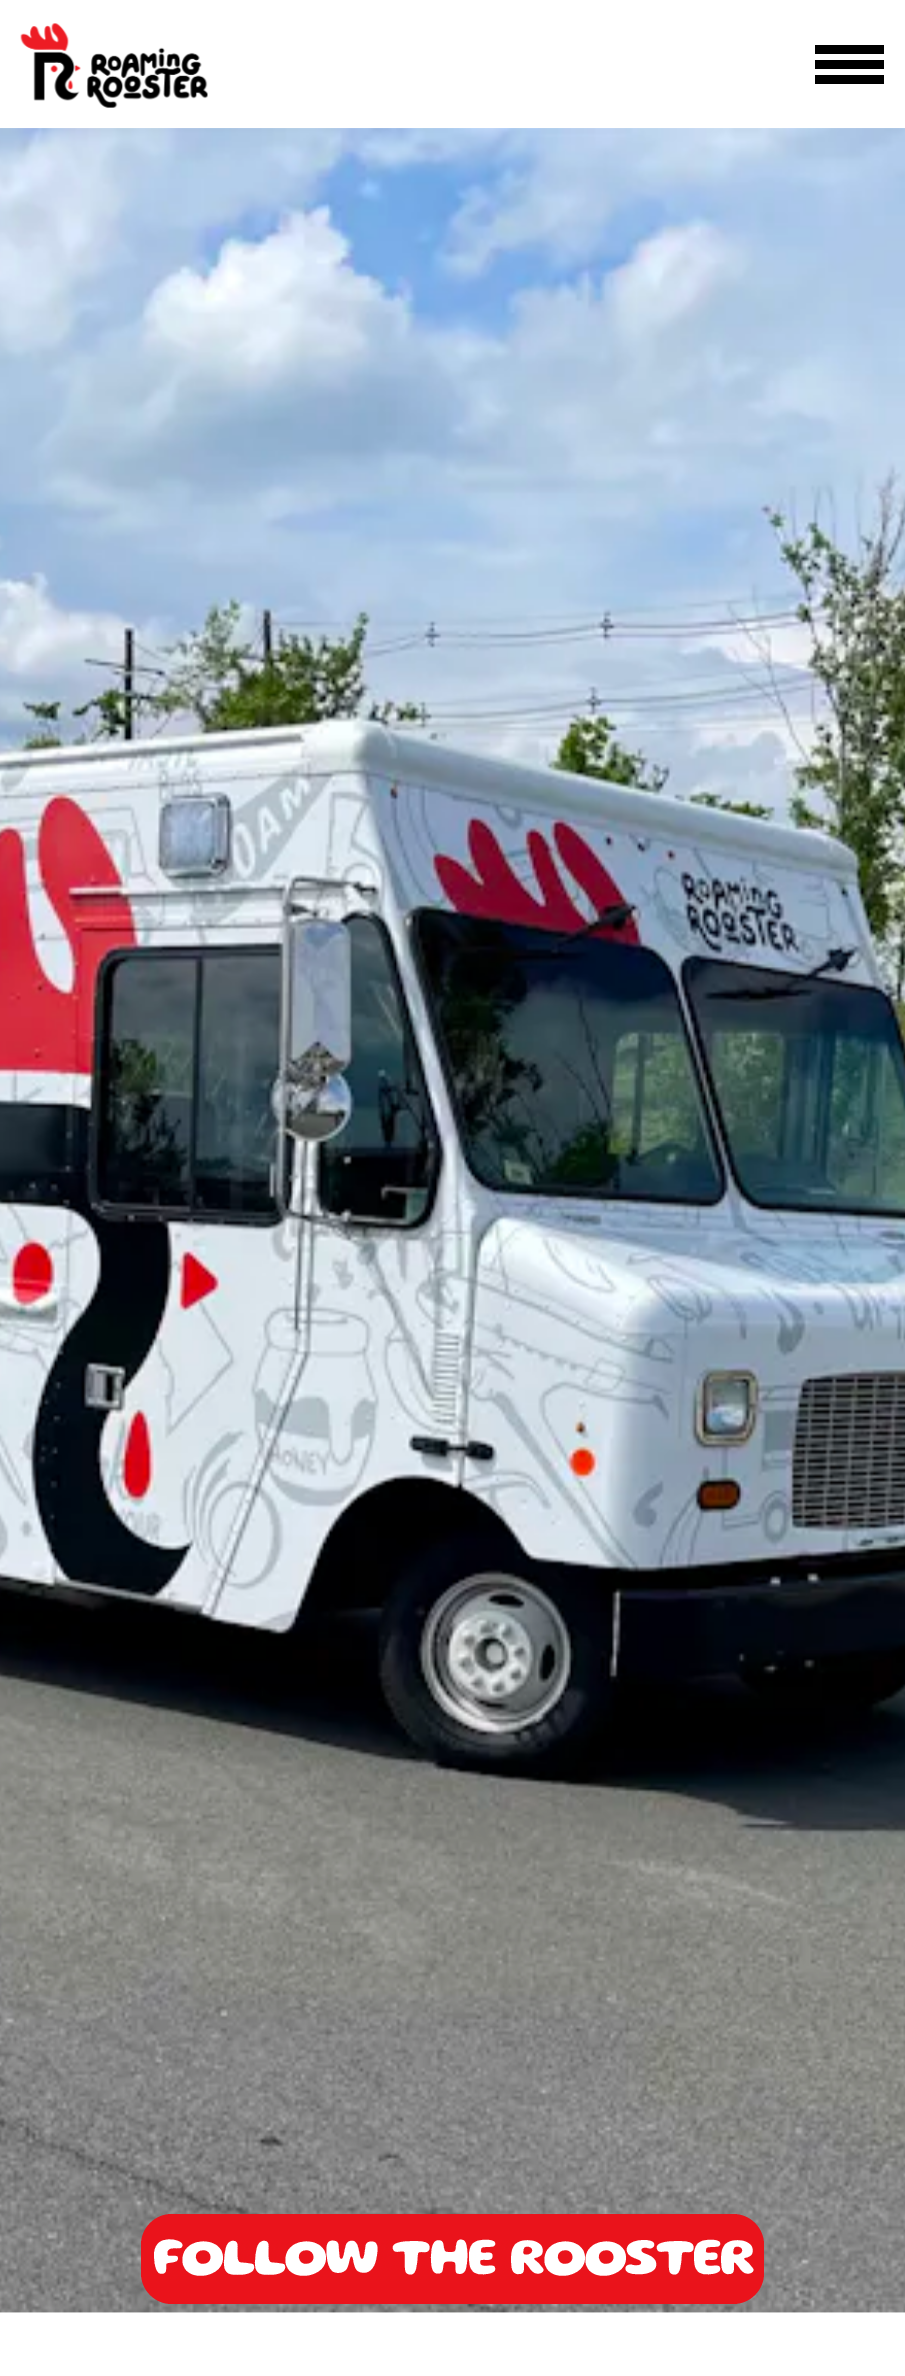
%!PS
<< /PageSize [905 2376] >> setpagedevice
/mt/moveto load def
/fl/fill load def
/co { dup -16 bitshift 255 div exch dup -8 bitshift 255 and 255 div exch 255 and 255 div setrgbcolor } def
/fn { [ exch dup neg 0 0 3 -1 roll 0 0 ] selectfont } def
/bx { co rectfill } def
/rr { 5 dict begin { /r /h /w /y /x } { exch def } forall
  x r add y moveto x w add y 2 copy h add r arct x w add y h add x 1 index r arct
  x y h add x y r arct x y 2 copy exch w add exch r arct closepath end } def
/im { 5 dict begin { /h /w /y /x /name } { exch def } forall
  gsave x y translate w h scale
  w h 8 [w 0 0 h 0 0] name (r) file false 3 colorimage grestore end } def
0 2376 translate 1 -1 scale
4 setmiterlimit
0 0 905 2376 16#FFFFFF bx
(media/1.raw) 20 23 188 85 im
815 45 69 9 16#000000 bx
815 60 69 9 16#000000 bx
815 75 69 9 16#000000 bx
(media/2.raw) 0 128 905 2185 im
16#EA131B co
141 2214 623 90 31 rr fl
/Gluten-Bold 53.1 fn
16#FFFFFF co
152 2273 mt -2.5 0 (FOLLOW THE ROOSTER) ashow
showpage
